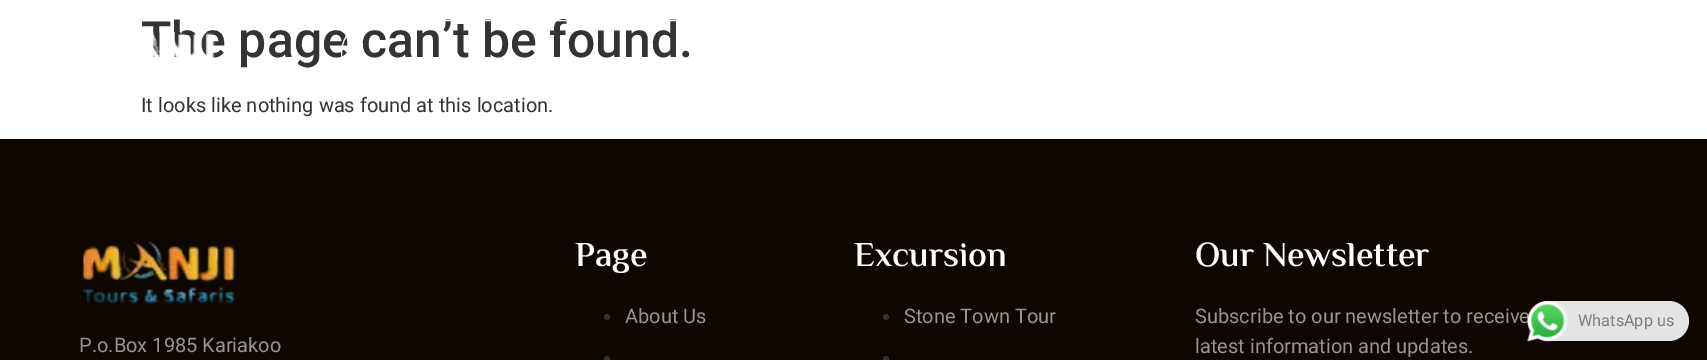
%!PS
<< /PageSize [1707 360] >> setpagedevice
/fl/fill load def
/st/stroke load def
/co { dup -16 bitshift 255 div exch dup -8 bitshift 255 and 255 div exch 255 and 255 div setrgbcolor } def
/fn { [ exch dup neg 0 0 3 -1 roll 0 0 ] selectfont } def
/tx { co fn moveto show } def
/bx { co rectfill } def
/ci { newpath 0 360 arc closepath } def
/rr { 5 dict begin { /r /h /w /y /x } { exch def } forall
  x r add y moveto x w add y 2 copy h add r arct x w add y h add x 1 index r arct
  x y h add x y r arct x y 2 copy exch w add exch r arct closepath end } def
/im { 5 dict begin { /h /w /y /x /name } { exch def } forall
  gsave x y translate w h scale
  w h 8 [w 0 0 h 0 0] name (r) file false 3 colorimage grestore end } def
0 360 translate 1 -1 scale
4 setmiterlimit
0 0 1707 360 16#FFFFFF bx
0 139 1707 221 16#0E0700 bx
(media/2.raw) 81 241 155 63 im
16#333333 co
607 317 3 ci fl
604 356 6 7 3 rr fl
886 317 3 ci fl
883 356 6 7 3 rr fl
(The page can’t be found.) 141 57 /Roboto-Medium 50 16#333333 tx
(It looks like nothing was found at this location.) 141 112 /Roboto-Regular 20 16#333333 tx
(media/1.raw) 153 32 62 26 im
16#FFFFFF co
341.5 20.5 1024 65 32.5 rr st
(P.o.Box 1985 Kariakoo) 79 352 /Roboto-Regular 20 16#979491 tx
(Page) 575 266 /ElMessiri-SemiBold 35 16#FFFFFF tx
(About Us) 625 323 /Roboto-Regular 20 16#979491 tx
(Excursion) 854 266 /ElMessiri-SemiBold 35 16#FFFFFF tx
(Stone Town Tour) 904 323 /Roboto-Regular 20 16#979491 tx
(Our Newsletter) 1195 266 /ElMessiri-SemiBold 35 16#FFFFFF tx
(Subscribe to our newsletter to receive) 1195 323 /Roboto-Regular 20 16#979491 tx
(latest information and updates.) 1195 353 /Roboto-Regular 20 16#979491 tx
16#E4E4E4 co
1528 301 161 40 20 rr fl
(media/3.raw) 1527 301 41 41 im
(WhatsApp us) 1578 326 /Roboto-Regular 16.25 16#7F7D7D tx
showpage
